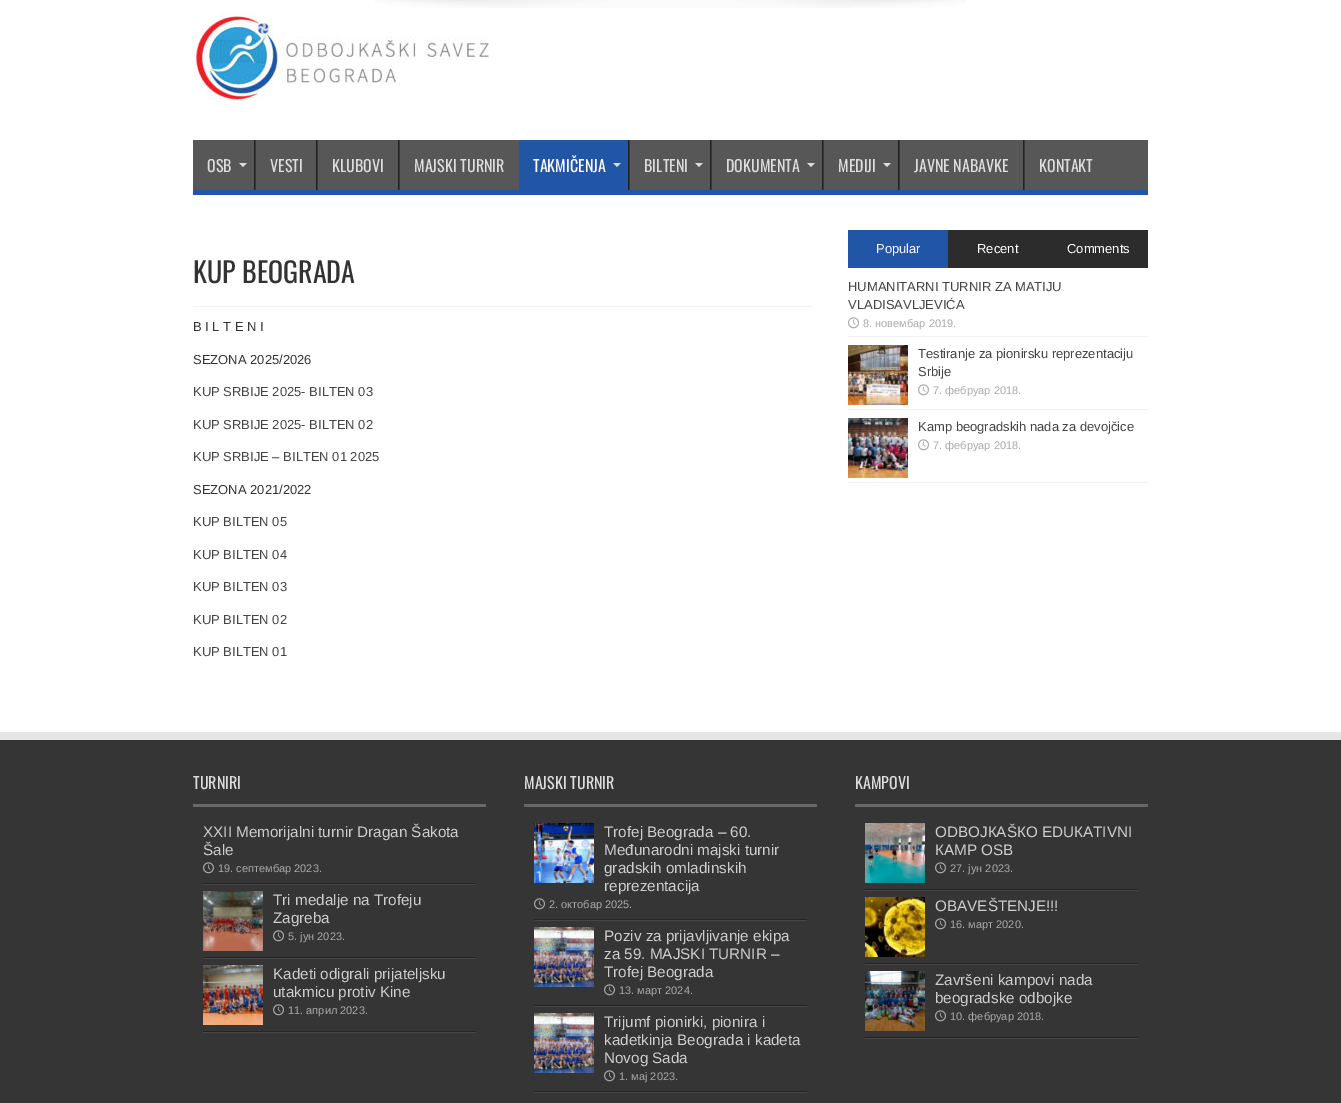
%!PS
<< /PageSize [1341 1103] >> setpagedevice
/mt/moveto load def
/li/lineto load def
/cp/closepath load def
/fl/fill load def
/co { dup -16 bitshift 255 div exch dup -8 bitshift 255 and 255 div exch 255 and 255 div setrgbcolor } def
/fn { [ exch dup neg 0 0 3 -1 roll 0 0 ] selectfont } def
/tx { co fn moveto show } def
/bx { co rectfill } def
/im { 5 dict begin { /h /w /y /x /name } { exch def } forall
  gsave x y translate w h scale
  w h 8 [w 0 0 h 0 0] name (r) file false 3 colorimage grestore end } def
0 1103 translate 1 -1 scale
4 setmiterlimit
0 0 1341 1103 16#FFFFFF bx
(media/1.raw) 375 0 591 8 im
(media/2.raw) 193 12 296 88 im
193 140 955 50 16#575757 bx
193 190 955 5 16#2155A6 bx
16#DDDDDD co
239 163 mt 247 163 li 243 167 li cp fl
254 140 1 50 16#222222 bx
255 140 1 50 16#383838 bx
316 140 1 50 16#222222 bx
317 140 1 50 16#383838 bx
398 140 1 50 16#222222 bx
399 140 1 50 16#383838 bx
519 140 109 50 16#2155A6 bx
16#DDDDDD co
613 163 mt 621 163 li 617 167 li cp fl
628 140 1 50 16#222222 bx
629 140 1 50 16#383838 bx
16#DDDDDD co
695 163 mt 703 163 li 699 167 li cp fl
710 140 1 50 16#222222 bx
711 140 1 50 16#383838 bx
16#DDDDDD co
807 163 mt 815 163 li 811 167 li cp fl
822 140 1 50 16#222222 bx
823 140 1 50 16#383838 bx
16#DDDDDD co
883 163 mt 891 163 li 887 167 li cp fl
898 140 1 50 16#222222 bx
899 140 1 50 16#383838 bx
1023 140 1 50 16#222222 bx
1024 140 1 50 16#383838 bx
193 306 620 1 16#F2F2F2 bx
848 230 100 38 16#2155A6 bx
948 230 200 38 16#2C2C2C bx
848 336 300 1 16#F2F2F2 bx
(media/3.raw) 848 317 11 12 im
848 409 300 1 16#F2F2F2 bx
(media/4.raw) 848 345 60 60 im
(media/3.raw) 918 384 11 12 im
848 482 300 1 16#F2F2F2 bx
(media/5.raw) 848 418 60 60 im
(media/3.raw) 918 439 11 12 im
0 732 1341 8 16#E6E6E6 bx
0 740 1341 363 16#353535 bx
193 804 293 3 16#686868 bx
203 1032 273 1 16#464646 bx
203 883 273 1 16#252525 bx
(media/6.raw) 203 862 11 12 im
203 884 273 1 16#464646 bx
203 957 273 1 16#252525 bx
(media/7.raw) 203 891 60 60 im
(media/6.raw) 273 930 11 12 im
203 958 273 1 16#464646 bx
203 1031 273 1 16#252525 bx
(media/8.raw) 203 965 60 60 im
(media/6.raw) 273 1004 11 12 im
524 804 293 3 16#686868 bx
534 1092 273 1 16#464646 bx
534 919 273 1 16#252525 bx
(media/9.raw) 534 823 60 60 im
(media/6.raw) 534 898 11 12 im
534 920 273 1 16#464646 bx
534 1005 273 1 16#252525 bx
(media/10.raw) 534 927 60 60 im
(media/6.raw) 604 984 11 12 im
534 1006 273 1 16#464646 bx
534 1091 273 1 16#252525 bx
(media/11.raw) 534 1013 60 60 im
(media/6.raw) 604 1070 11 12 im
855 804 293 3 16#686868 bx
865 1038 273 1 16#464646 bx
865 889 273 1 16#252525 bx
(media/12.raw) 865 823 60 60 im
(media/6.raw) 935 862 11 12 im
865 890 273 1 16#464646 bx
865 963 273 1 16#252525 bx
(media/13.raw) 865 897 60 60 im
(media/6.raw) 935 918 11 12 im
865 964 273 1 16#464646 bx
865 1037 273 1 16#252525 bx
(media/14.raw) 865 971 60 60 im
(media/6.raw) 935 1010 11 12 im
(OSB) 207 172 /Oswald-Regular 16 16#DDDDDD tx
(VESTI) 270 172 /Oswald-Regular 16 16#DDDDDD tx
(KLUBOVI) 332 172 /Oswald-Regular 16 16#DDDDDD tx
(MAJSKI TURNIR) 414 172 /Oswald-Regular 16 16#DDDDDD tx
(TAKMIČENJA) 533 172 /Oswald-Regular 16 16#FFFFFF tx
(BILTENI) 644 172 /Oswald-Regular 16 16#DDDDDD tx
(DOKUMENTA) 726 172 /Oswald-Regular 16 16#DDDDDD tx
(MEDIJI) 838 172 /Oswald-Regular 16 16#DDDDDD tx
(JAVNE NABAVKE) 914 172 /Oswald-Regular 16 16#DDDDDD tx
(KONTAKT) 1039 172 /Oswald-Regular 16 16#DDDDDD tx
(KUP BEOGRADA) 193 283 /Oswald-Regular 28 16#333333 tx
(B I L T E N I) 193 331 /LiberationSans-Regular 13 16#333333 tx
(SEZONA 2025/2026) 193 364 /LiberationSans-Regular 13 16#333333 tx
(KUP SRBIJE 2025- BILTEN 03) 193 396 /LiberationSans-Regular 13 16#444444 tx
(KUP SRBIJE 2025- BILTEN 02) 193 429 /LiberationSans-Regular 13 16#444444 tx
(KUP SRBIJE – BILTEN 01 2025) 193 461 /LiberationSans-Regular 13 16#444444 tx
(SEZONA 2021/2022) 193 494 /LiberationSans-Regular 13 16#333333 tx
(KUP BILTEN 05) 193 526 /LiberationSans-Regular 13 16#444444 tx
(KUP BILTEN 04) 193 559 /LiberationSans-Regular 13 16#444444 tx
(KUP BILTEN 03) 193 591 /LiberationSans-Regular 13 16#444444 tx
(KUP BILTEN 02) 193 624 /LiberationSans-Regular 13 16#444444 tx
(KUP BILTEN 01) 193 656 /LiberationSans-Regular 13 16#444444 tx
(Popular) 876 253 /LiberationSans-Regular 13 16#FFFFFF tx
(Recent) 977 253 /LiberationSans-Regular 13 16#FFFFFF tx
(Comments) 1067 253 /LiberationSans-Regular 13 16#FFFFFF tx
(HUMANITARNI TURNIR ZA MATIJU) 848 291 /LiberationSans-Regular 13 16#444444 tx
(VLADISAVLJEVIĆA) 848 309 /LiberationSans-Regular 13 16#444444 tx
(8. новембар 2019.) 863 327 /LiberationSans-Regular 11 16#AAAAAA tx
(Testiranje za pionirsku reprezentaciju) 918 358 /LiberationSans-Regular 13 16#444444 tx
(Srbije) 918 376 /LiberationSans-Regular 13 16#444444 tx
(7. фебруар 2018.) 933 394 /LiberationSans-Regular 11 16#AAAAAA tx
(Kamp beogradskih nada za devojčice) 918 431 /LiberationSans-Regular 13 16#444444 tx
(7. фебруар 2018.) 933 449 /LiberationSans-Regular 11 16#AAAAAA tx
(TURNIRI) 193 789 /Oswald-Regular 16 16#DDDDDD tx
(XXII Memorijalni turnir Dragan Šakota) 203 837 /LiberationSans-Regular 15.25 16#CDCDCD tx
(Šale) 203 855 /LiberationSans-Regular 15.25 16#CDCDCD tx
(19. септембар 2023.) 218 872 /LiberationSans-Regular 11 16#AAAAAA tx
(Tri medalje na Trofeju) 273 905 /LiberationSans-Regular 15.25 16#CDCDCD tx
(Zagreba) 273 923 /LiberationSans-Regular 15.25 16#CDCDCD tx
(5. јун 2023.) 288 940 /LiberationSans-Regular 11 16#AAAAAA tx
(Kadeti odigrali prijateljsku) 273 979 /LiberationSans-Regular 15.25 16#CDCDCD tx
(utakmicu protiv Kine) 273 997 /LiberationSans-Regular 15.25 16#CDCDCD tx
(11. април 2023.) 288 1014 /LiberationSans-Regular 11 16#AAAAAA tx
(MAJSKI TURNIR) 524 789 /Oswald-Regular 16 16#DDDDDD tx
(Trofej Beograda – 60.) 604 837 /LiberationSans-Regular 15.25 16#CDCDCD tx
(Međunarodni majski turnir) 604 855 /LiberationSans-Regular 15.25 16#CDCDCD tx
(gradskih omladinskih) 604 873 /LiberationSans-Regular 15.25 16#CDCDCD tx
(reprezentacija) 604 891 /LiberationSans-Regular 15.25 16#CDCDCD tx
(2. октобар 2025.) 549 908 /LiberationSans-Regular 11 16#AAAAAA tx
(Poziv za prijavljivanje ekipa) 604 941 /LiberationSans-Regular 15.25 16#CDCDCD tx
(za 59. MAJSKI TURNIR –) 604 959 /LiberationSans-Regular 15.25 16#CDCDCD tx
(Trofej Beograda) 604 977 /LiberationSans-Regular 15.25 16#CDCDCD tx
(13. март 2024.) 619 994 /LiberationSans-Regular 11 16#AAAAAA tx
(Trijumf pionirki, pionira i) 604 1027 /LiberationSans-Regular 15.25 16#CDCDCD tx
(kadetkinja Beograda i kadeta) 604 1045 /LiberationSans-Regular 15.25 16#CDCDCD tx
(Novog Sada) 604 1063 /LiberationSans-Regular 15.25 16#CDCDCD tx
(1. мај 2023.) 619 1080 /LiberationSans-Regular 11 16#AAAAAA tx
(KAMPOVI) 855 789 /Oswald-Regular 16 16#DDDDDD tx
(ODBOJКAŠКO EDUКATIVNI) 935 837 /LiberationSans-Regular 15.25 16#CDCDCD tx
(КAMP OSB) 935 855 /LiberationSans-Regular 15.25 16#CDCDCD tx
(27. јун 2023.) 950 872 /LiberationSans-Regular 11 16#AAAAAA tx
(OBAVEŠTENJE!!!) 935 911 /LiberationSans-Regular 15.25 16#CDCDCD tx
(16. март 2020.) 950 928 /LiberationSans-Regular 11 16#AAAAAA tx
(Završeni kampovi nada) 935 985 /LiberationSans-Regular 15.25 16#CDCDCD tx
(beogradske odbojke) 935 1003 /LiberationSans-Regular 15.25 16#CDCDCD tx
(10. фебруар 2018.) 950 1020 /LiberationSans-Regular 11 16#AAAAAA tx
showpage
